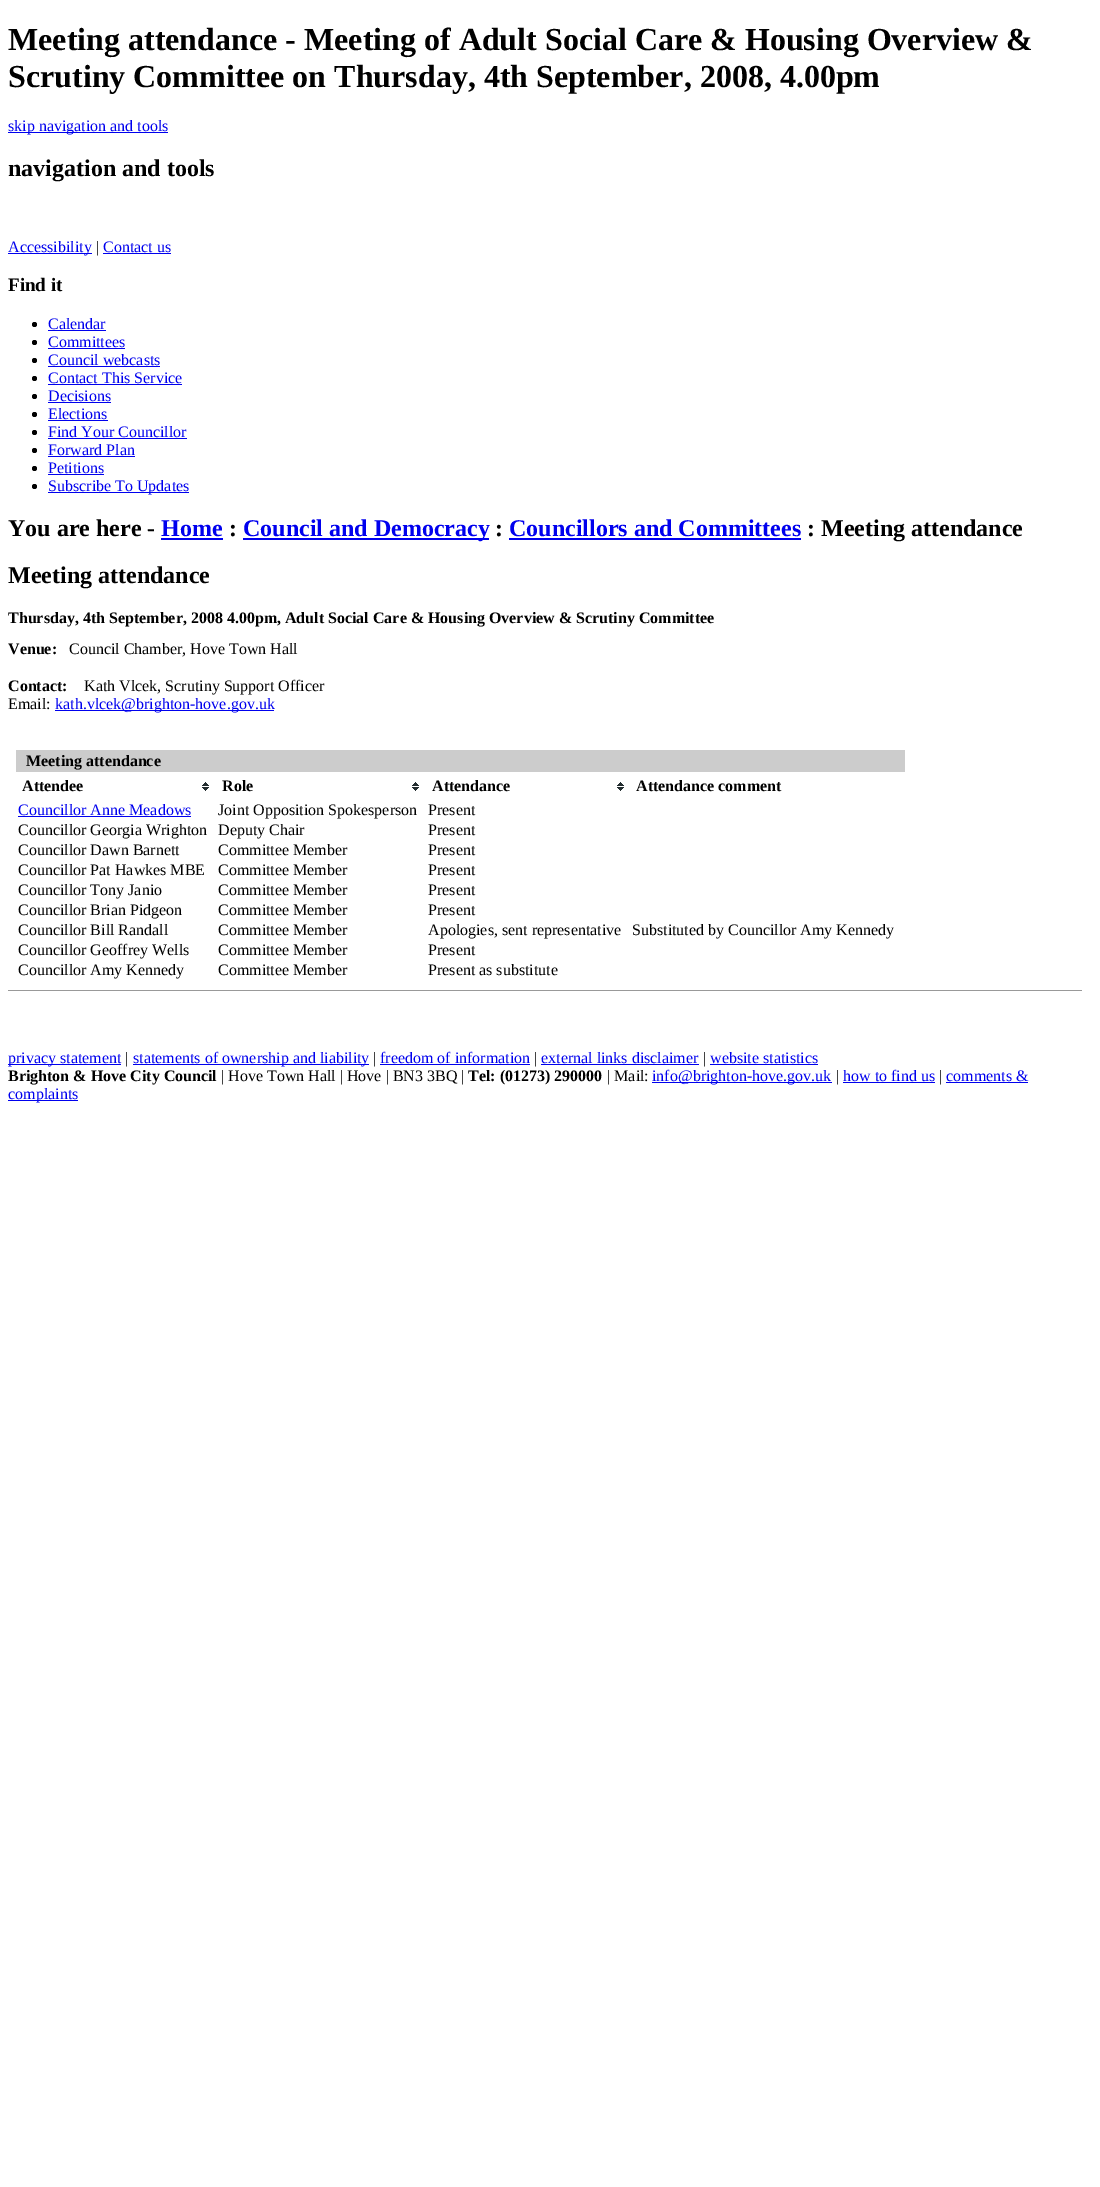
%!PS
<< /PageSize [1100 2187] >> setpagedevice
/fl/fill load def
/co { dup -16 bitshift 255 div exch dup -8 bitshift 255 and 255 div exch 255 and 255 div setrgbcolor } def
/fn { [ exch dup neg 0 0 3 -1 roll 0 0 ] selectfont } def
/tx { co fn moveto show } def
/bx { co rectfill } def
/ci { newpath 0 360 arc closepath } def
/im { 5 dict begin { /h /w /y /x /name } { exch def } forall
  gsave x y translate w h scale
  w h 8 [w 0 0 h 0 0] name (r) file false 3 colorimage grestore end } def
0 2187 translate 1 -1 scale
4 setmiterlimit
0 0 1100 2187 16#FFFFFF bx
8 132 160 1 16#0000EE bx
8 253 84 1 16#0000EE bx
103 253 68 1 16#0000EE bx
16#000000 co
34.5 324.5 2.5 ci fl
48 330 58 1 16#0000EE bx
16#000000 co
34.5 342.5 2.5 ci fl
48 348 77 1 16#0000EE bx
16#000000 co
34.5 360.5 2.5 ci fl
48 366 112 1 16#0000EE bx
16#000000 co
34.5 378.5 2.5 ci fl
48 384 134 1 16#0000EE bx
16#000000 co
34.5 396.5 2.5 ci fl
48 402 63 1 16#0000EE bx
16#000000 co
34.5 414.5 2.5 ci fl
48 420 60 1 16#0000EE bx
16#000000 co
34.5 432.5 2.5 ci fl
48 438 139 1 16#0000EE bx
16#000000 co
34.5 450.5 2.5 ci fl
48 456 87 1 16#0000EE bx
16#000000 co
34.5 468.5 2.5 ci fl
48 474 56 1 16#0000EE bx
16#000000 co
34.5 486.5 2.5 ci fl
48 492 141 1 16#0000EE bx
161 538 62 2 16#0000EE bx
243 538 246 2 16#0000EE bx
509 538 292 2 16#0000EE bx
55 710 219 1 16#0000EE bx
16 750 889 22 16#CCCCCC bx
(media/1.raw) 202 782 7 9 im
(media/1.raw) 412 782 7 9 im
(media/1.raw) 617 782 7 9 im
18 816 173 1 16#0000EE bx
8 990 1074 1 16#999999 bx
8 1064 113 1 16#0000EE bx
133 1064 236 1 16#0000EE bx
380 1064 150 1 16#0000EE bx
541 1064 158 1 16#0000EE bx
710 1064 108 1 16#0000EE bx
652 1082 180 1 16#0000EE bx
843 1082 92 1 16#0000EE bx
946 1082 82 1 16#0000EE bx
8 1100 70 1 16#0000EE bx
(Meeting attendance - Meeting of Adult Social Care & Housing Overview &) 8 50 /LiberationSerif-Bold 32 16#000000 tx
(Scrutiny Committee on Thursday, 4th September, 2008, 4.00pm) 8 87 /LiberationSerif-Bold 32 16#000000 tx
(skip navigation and tools) 8 131 /LiberationSerif-Regular 16 16#0000EE tx
(navigation and tools) 8 176 /LiberationSerif-Bold 24 16#000000 tx
(Accessibility) 8 252 /LiberationSerif-Regular 16 16#0000EE tx
(|) 96 252 /LiberationSerif-Regular 16 16#000000 tx
(Contact us) 103 252 /LiberationSerif-Regular 16 16#0000EE tx
(Find it) 8 291 /LiberationSerif-Bold 19 16#000000 tx
(Calendar) 48 329 /LiberationSerif-Regular 16 16#0000EE tx
(Committees) 48 347 /LiberationSerif-Regular 16 16#0000EE tx
(Council webcasts) 48 365 /LiberationSerif-Regular 16 16#0000EE tx
(Contact This Service) 48 383 /LiberationSerif-Regular 16 16#0000EE tx
(Decisions) 48 401 /LiberationSerif-Regular 16 16#0000EE tx
(Elections) 48 419 /LiberationSerif-Regular 16 16#0000EE tx
(Find Your Councillor) 48 437 /LiberationSerif-Regular 16 16#0000EE tx
(Forward Plan) 48 455 /LiberationSerif-Regular 16 16#0000EE tx
(Petitions) 48 473 /LiberationSerif-Regular 16 16#0000EE tx
(Subscribe To Updates) 48 491 /LiberationSerif-Regular 16 16#0000EE tx
(You are here -) 8 536 /LiberationSerif-Bold 24 16#000000 tx
(Home) 161 536 /LiberationSerif-Bold 24 16#0000EE tx
(:) 229 536 /LiberationSerif-Bold 24 16#000000 tx
(Council and Democracy) 243 536 /LiberationSerif-Bold 24 16#0000EE tx
(:) 495 536 /LiberationSerif-Bold 24 16#000000 tx
(Councillors and Committees) 509 536 /LiberationSerif-Bold 24 16#0000EE tx
(: Meeting attendance) 807 536 /LiberationSerif-Bold 24 16#000000 tx
(Meeting attendance) 8 583 /LiberationSerif-Bold 24 16#000000 tx
(Thursday, 4th September, 2008 4.00pm, Adult Social Care & Housing Overview & Scrutiny Committee) 8 623 /LiberationSerif-Bold 16 16#000000 tx
(Venue:) 8 654 /LiberationSerif-Bold 16 16#000000 tx
(Council Chamber, Hove Town Hall) 69 654 /LiberationSerif-Regular 16 16#000000 tx
(Contact:) 8 691 /LiberationSerif-Bold 16 16#000000 tx
(Kath Vlcek, Scrutiny Support Officer) 84 691 /LiberationSerif-Regular 16 16#000000 tx
(Email:) 8 709 /LiberationSerif-Regular 16 16#000000 tx
(kath.vlcek@brighton-hove.gov.uk) 55 709 /LiberationSerif-Regular 16 16#0000EE tx
(Meeting attendance) 26 766 /LiberationSerif-Bold 16 16#000000 tx
(Attendee) 22 791 /LiberationSerif-Bold 16 16#000000 tx
(Role) 222 791 /LiberationSerif-Bold 16 16#000000 tx
(Attendance) 432 791 /LiberationSerif-Bold 16 16#000000 tx
(Attendance comment) 636 791 /LiberationSerif-Bold 16 16#000000 tx
(Councillor Anne Meadows) 18 815 /LiberationSerif-Regular 16 16#0000EE tx
(Joint Opposition Spokesperson) 218 815 /LiberationSerif-Regular 16 16#000000 tx
(Present) 428 815 /LiberationSerif-Regular 16 16#000000 tx
(Councillor Georgia Wrighton) 18 835 /LiberationSerif-Regular 16 16#000000 tx
(Deputy Chair) 218 835 /LiberationSerif-Regular 16 16#000000 tx
(Present) 428 835 /LiberationSerif-Regular 16 16#000000 tx
(Councillor Dawn Barnett) 18 855 /LiberationSerif-Regular 16 16#000000 tx
(Committee Member) 218 855 /LiberationSerif-Regular 16 16#000000 tx
(Present) 428 855 /LiberationSerif-Regular 16 16#000000 tx
(Councillor Pat Hawkes MBE) 18 875 /LiberationSerif-Regular 16 16#000000 tx
(Committee Member) 218 875 /LiberationSerif-Regular 16 16#000000 tx
(Present) 428 875 /LiberationSerif-Regular 16 16#000000 tx
(Councillor Tony Janio) 18 895 /LiberationSerif-Regular 16 16#000000 tx
(Committee Member) 218 895 /LiberationSerif-Regular 16 16#000000 tx
(Present) 428 895 /LiberationSerif-Regular 16 16#000000 tx
(Councillor Brian Pidgeon) 18 915 /LiberationSerif-Regular 16 16#000000 tx
(Committee Member) 218 915 /LiberationSerif-Regular 16 16#000000 tx
(Present) 428 915 /LiberationSerif-Regular 16 16#000000 tx
(Councillor Bill Randall) 18 935 /LiberationSerif-Regular 16 16#000000 tx
(Committee Member) 218 935 /LiberationSerif-Regular 16 16#000000 tx
(Apologies, sent representative) 428 935 /LiberationSerif-Regular 16 16#000000 tx
(Substituted by Councillor Amy Kennedy) 632 935 /LiberationSerif-Regular 16 16#000000 tx
(Councillor Geoffrey Wells) 18 955 /LiberationSerif-Regular 16 16#000000 tx
(Committee Member) 218 955 /LiberationSerif-Regular 16 16#000000 tx
(Present) 428 955 /LiberationSerif-Regular 16 16#000000 tx
(Councillor Amy Kennedy) 18 975 /LiberationSerif-Regular 16 16#000000 tx
(Committee Member) 218 975 /LiberationSerif-Regular 16 16#000000 tx
(Present as substitute) 428 975 /LiberationSerif-Regular 16 16#000000 tx
(privacy statement) 8 1063 /LiberationSerif-Regular 16 16#0000EE tx
(|) 125 1063 /LiberationSerif-Regular 16 16#000000 tx
(statements of ownership and liability) 133 1063 /LiberationSerif-Regular 16 16#0000EE tx
(|) 373 1063 /LiberationSerif-Regular 16 16#000000 tx
(freedom of information) 380 1063 /LiberationSerif-Regular 16 16#0000EE tx
(|) 534 1063 /LiberationSerif-Regular 16 16#000000 tx
(external links disclaimer) 541 1063 /LiberationSerif-Regular 16 16#0000EE tx
(|) 703 1063 /LiberationSerif-Regular 16 16#000000 tx
(website statistics) 710 1063 /LiberationSerif-Regular 16 16#0000EE tx
(Brighton & Hove City Council) 8 1081 /LiberationSerif-Bold 16 16#000000 tx
(| Hove Town Hall | Hove | BN3 3BQ |) 221 1081 /LiberationSerif-Regular 16 16#000000 tx
(Tel: \(01273\) 290000) 468 1081 /LiberationSerif-Bold 16 16#000000 tx
(| Mail:) 607 1081 /LiberationSerif-Regular 16 16#000000 tx
(info@brighton-hove.gov.uk) 652 1081 /LiberationSerif-Regular 16 16#0000EE tx
(|) 836 1081 /LiberationSerif-Regular 16 16#000000 tx
(how to find us) 843 1081 /LiberationSerif-Regular 16 16#0000EE tx
(|) 939 1081 /LiberationSerif-Regular 16 16#000000 tx
(comments &) 946 1081 /LiberationSerif-Regular 16 16#0000EE tx
(complaints) 8 1099 /LiberationSerif-Regular 16 16#0000EE tx
showpage
